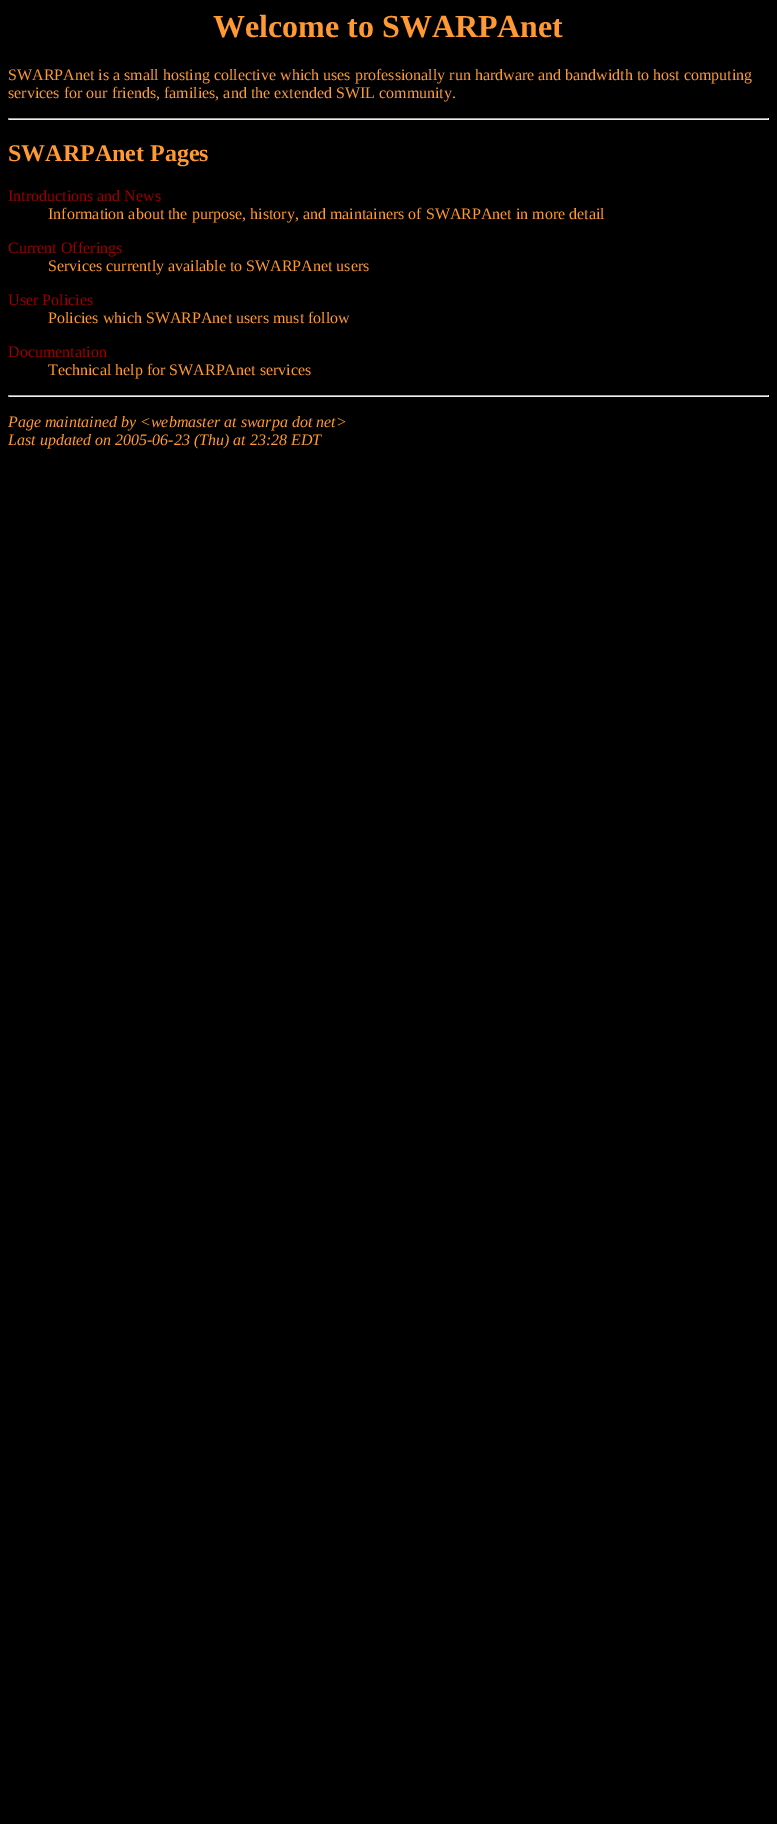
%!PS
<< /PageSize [777 1824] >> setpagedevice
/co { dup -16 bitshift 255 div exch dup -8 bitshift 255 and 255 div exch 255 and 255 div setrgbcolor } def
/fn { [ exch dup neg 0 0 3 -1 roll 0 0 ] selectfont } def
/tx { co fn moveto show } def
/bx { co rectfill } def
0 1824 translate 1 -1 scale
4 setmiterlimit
0 0 777 1824 16#000000 bx
8 118 761 1 16#9F9F9F bx
768 118 1 2 16#EEEEEE bx
8 119 761 1 16#EEEEEE bx
8 118 1 2 16#9F9F9F bx
8 395 761 1 16#9F9F9F bx
768 395 1 2 16#EEEEEE bx
8 396 761 1 16#EEEEEE bx
8 395 1 2 16#9F9F9F bx
(Welcome to SWARPAnet) 213 37 /LiberationSerif-Bold 32 16#FF9933 tx
(SWARPAnet is a small hosting collective which uses professionally run hardware and bandwidth to host computing) 8 80 /LiberationSerif-Regular 16 16#FF9933 tx
(services for our friends, families, and the extended SWIL community.) 8 98 /LiberationSerif-Regular 16 16#FF9933 tx
(SWARPAnet Pages) 8 161 /LiberationSerif-Bold 24 16#FF9933 tx
(Introductions and News) 8 201 /LiberationSerif-Regular 16 16#990000 tx
(Information about the purpose, history, and maintainers of SWARPAnet in more detail) 48 219 /LiberationSerif-Regular 16 16#FF9933 tx
(Current Offerings) 8 253 /LiberationSerif-Regular 16 16#990000 tx
(Services currently available to SWARPAnet users) 48 271 /LiberationSerif-Regular 16 16#FF9933 tx
(User Policies) 8 305 /LiberationSerif-Regular 16 16#990000 tx
(Policies which SWARPAnet users must follow) 48 323 /LiberationSerif-Regular 16 16#FF9933 tx
(Documentation) 8 357 /LiberationSerif-Regular 16 16#990000 tx
(Technical help for SWARPAnet services) 48 375 /LiberationSerif-Regular 16 16#FF9933 tx
(Page maintained by <webmaster at swarpa dot net>) 8 427 /LiberationSerif-Italic 16 16#FF9933 tx
(Last updated on 2005-06-23 \(Thu\) at 23:28 EDT) 8 445 /LiberationSerif-Italic 16 16#FF9933 tx
showpage
